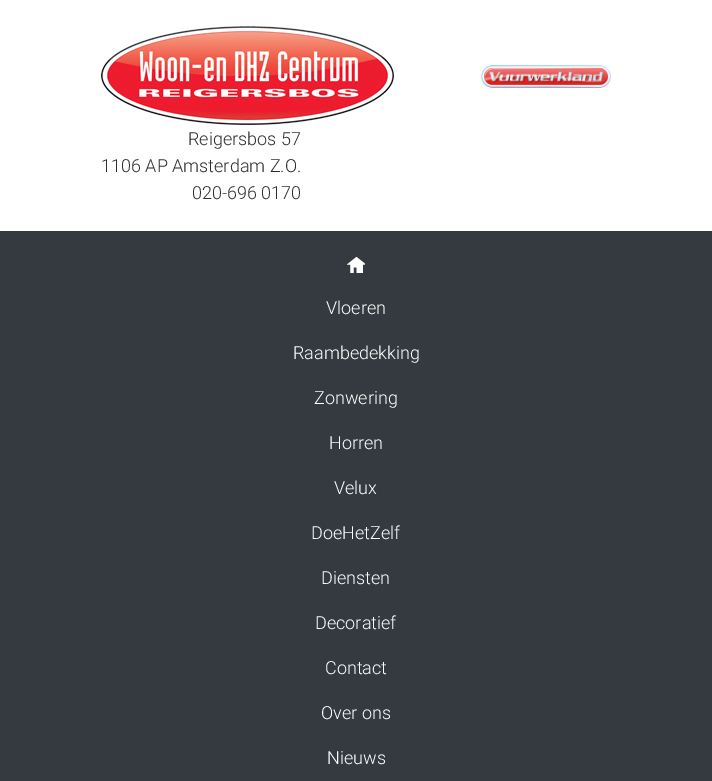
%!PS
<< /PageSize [712 781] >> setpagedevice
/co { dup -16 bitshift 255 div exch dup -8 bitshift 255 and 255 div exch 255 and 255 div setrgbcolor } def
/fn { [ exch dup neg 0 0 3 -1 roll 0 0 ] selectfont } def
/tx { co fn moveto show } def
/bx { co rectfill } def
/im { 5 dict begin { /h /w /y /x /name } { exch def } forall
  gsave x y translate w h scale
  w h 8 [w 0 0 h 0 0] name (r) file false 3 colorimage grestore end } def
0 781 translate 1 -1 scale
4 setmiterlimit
0 0 712 781 16#FFFFFF bx
(media/1.raw) 101 26 293 99 im
(media/2.raw) 481 65 130 23 im
0 231 712 550 16#343A40 bx
(media/3.raw) 347 257 18 16 im
(Reigersbos 57) 188 145 /Roboto-Light 18 16#2C2F32 tx
(1106 AP Amsterdam Z.O.) 101 172 /Roboto-Light 18 16#2C2F32 tx
(020-696 0170) 192 199 /Roboto-Light 18 16#2C2F32 tx
(Vloeren) 326 314 /Roboto-Light 18 16#FFFFFF tx
(Raambedekking) 293 359 /Roboto-Light 18 16#FFFFFF tx
(Zonwering) 314 404 /Roboto-Light 18 16#FFFFFF tx
(Horren) 329 449 /Roboto-Light 18 16#FFFFFF tx
(Velux) 334 494 /Roboto-Light 18 16#FFFFFF tx
(DoeHetZelf) 311 539 /Roboto-Light 18 16#FFFFFF tx
(Diensten) 321 584 /Roboto-Light 18 16#FFFFFF tx
(Decoratief) 315 629 /Roboto-Light 18 16#FFFFFF tx
(Contact) 325 674 /Roboto-Light 18 16#FFFFFF tx
(Over ons) 321 719 /Roboto-Light 18 16#FFFFFF tx
(Nieuws) 327 764 /Roboto-Light 18 16#FFFFFF tx
showpage
